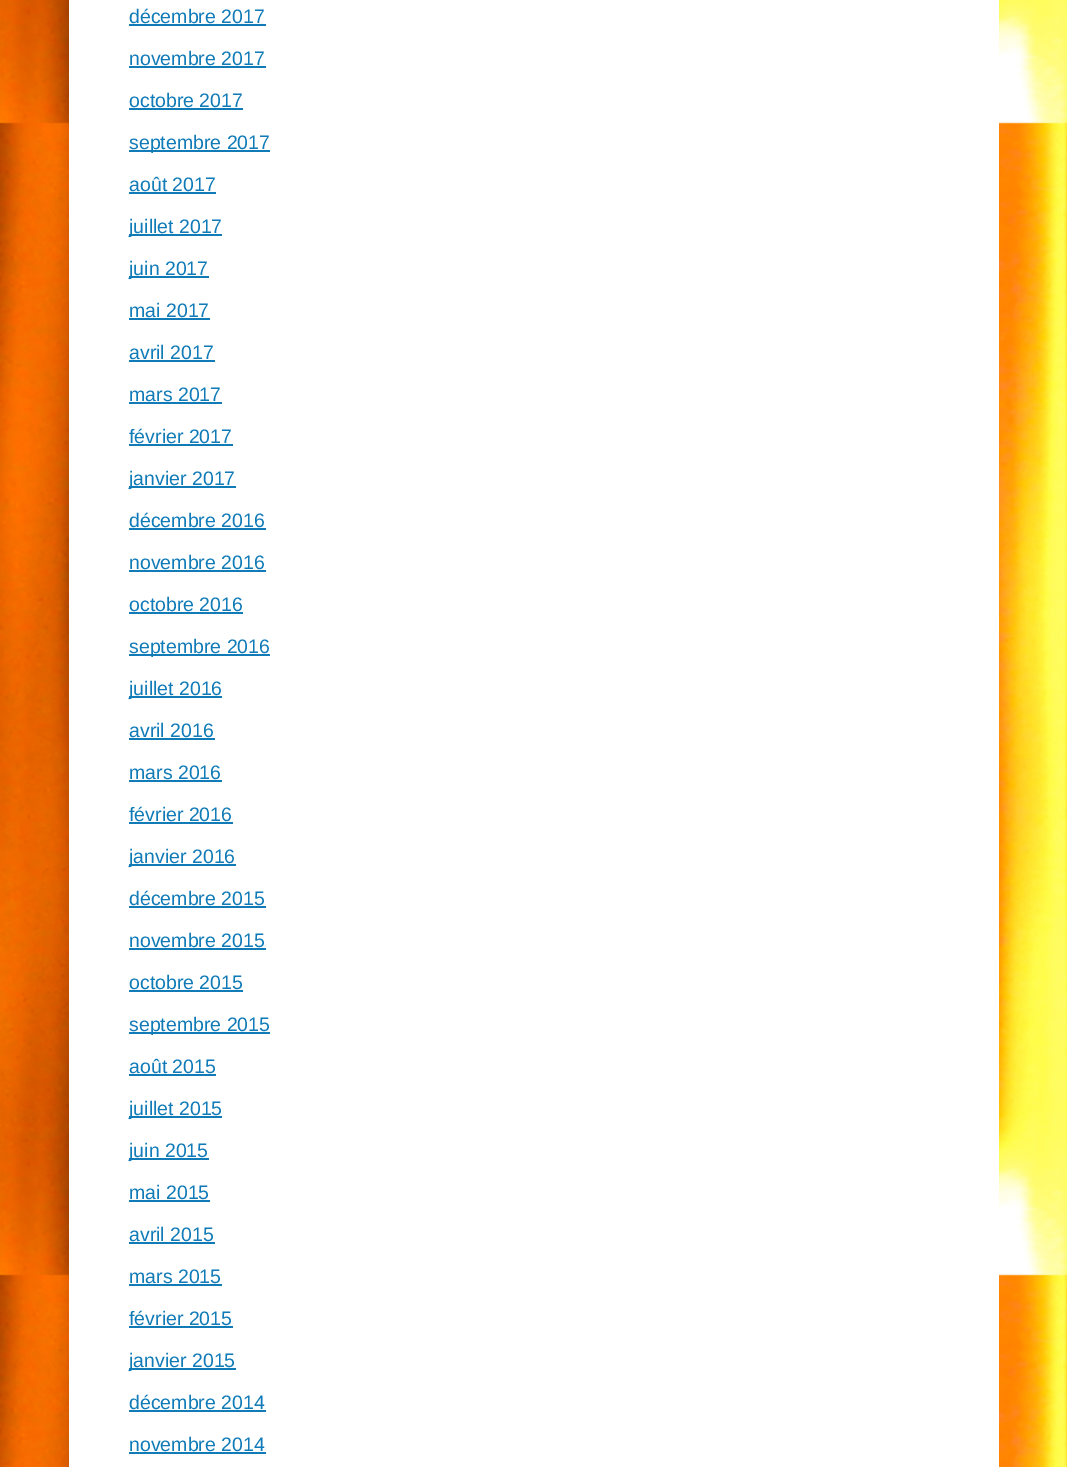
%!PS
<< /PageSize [1067 1467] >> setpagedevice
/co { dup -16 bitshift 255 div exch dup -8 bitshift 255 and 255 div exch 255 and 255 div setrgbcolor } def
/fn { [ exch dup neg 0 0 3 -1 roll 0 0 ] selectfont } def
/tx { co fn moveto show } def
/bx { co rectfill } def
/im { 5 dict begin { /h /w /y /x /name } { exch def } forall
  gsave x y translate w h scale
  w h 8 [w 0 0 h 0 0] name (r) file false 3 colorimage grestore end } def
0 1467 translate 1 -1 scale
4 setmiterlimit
0 0 1067 1467 16#FFFFFF bx
(media/1.raw) 0 0 1067 1467 im
69 0 930 1467 16#FFFFFF bx
129 24 137 2 16#117BB8 bx
129 66 137 2 16#117BB8 bx
129 108 114 2 16#117BB8 bx
129 150 141 2 16#117BB8 bx
129 192 87 2 16#117BB8 bx
129 234 93 2 16#117BB8 bx
129 276 80 2 16#117BB8 bx
129 318 81 2 16#117BB8 bx
129 360 86 2 16#117BB8 bx
129 402 93 2 16#117BB8 bx
129 444 104 2 16#117BB8 bx
129 486 107 2 16#117BB8 bx
129 528 137 2 16#117BB8 bx
129 570 137 2 16#117BB8 bx
129 612 114 2 16#117BB8 bx
129 654 141 2 16#117BB8 bx
129 696 93 2 16#117BB8 bx
129 738 86 2 16#117BB8 bx
129 780 93 2 16#117BB8 bx
129 822 104 2 16#117BB8 bx
129 864 107 2 16#117BB8 bx
129 906 137 2 16#117BB8 bx
129 948 137 2 16#117BB8 bx
129 990 114 2 16#117BB8 bx
129 1032 141 2 16#117BB8 bx
129 1074 87 2 16#117BB8 bx
129 1116 93 2 16#117BB8 bx
129 1158 80 2 16#117BB8 bx
129 1200 81 2 16#117BB8 bx
129 1242 86 2 16#117BB8 bx
129 1284 93 2 16#117BB8 bx
129 1326 104 2 16#117BB8 bx
129 1368 107 2 16#117BB8 bx
129 1410 137 2 16#117BB8 bx
129 1452 137 2 16#117BB8 bx
(décembre 2017) 129 23 /LiberationSans-Regular 19.5 16#117BB8 tx
(novembre 2017) 129 65 /LiberationSans-Regular 19.5 16#117BB8 tx
(octobre 2017) 129 107 /LiberationSans-Regular 19.5 16#117BB8 tx
(septembre 2017) 129 149 /LiberationSans-Regular 19.5 16#117BB8 tx
(août 2017) 129 191 /LiberationSans-Regular 19.5 16#117BB8 tx
(juillet 2017) 129 233 /LiberationSans-Regular 19.5 16#117BB8 tx
(juin 2017) 129 275 /LiberationSans-Regular 19.5 16#117BB8 tx
(mai 2017) 129 317 /LiberationSans-Regular 19.5 16#117BB8 tx
(avril 2017) 129 359 /LiberationSans-Regular 19.5 16#117BB8 tx
(mars 2017) 129 401 /LiberationSans-Regular 19.5 16#117BB8 tx
(février 2017) 129 443 /LiberationSans-Regular 19.5 16#117BB8 tx
(janvier 2017) 129 485 /LiberationSans-Regular 19.5 16#117BB8 tx
(décembre 2016) 129 527 /LiberationSans-Regular 19.5 16#117BB8 tx
(novembre 2016) 129 569 /LiberationSans-Regular 19.5 16#117BB8 tx
(octobre 2016) 129 611 /LiberationSans-Regular 19.5 16#117BB8 tx
(septembre 2016) 129 653 /LiberationSans-Regular 19.5 16#117BB8 tx
(juillet 2016) 129 695 /LiberationSans-Regular 19.5 16#117BB8 tx
(avril 2016) 129 737 /LiberationSans-Regular 19.5 16#117BB8 tx
(mars 2016) 129 779 /LiberationSans-Regular 19.5 16#117BB8 tx
(février 2016) 129 821 /LiberationSans-Regular 19.5 16#117BB8 tx
(janvier 2016) 129 863 /LiberationSans-Regular 19.5 16#117BB8 tx
(décembre 2015) 129 905 /LiberationSans-Regular 19.5 16#117BB8 tx
(novembre 2015) 129 947 /LiberationSans-Regular 19.5 16#117BB8 tx
(octobre 2015) 129 989 /LiberationSans-Regular 19.5 16#117BB8 tx
(septembre 2015) 129 1031 /LiberationSans-Regular 19.5 16#117BB8 tx
(août 2015) 129 1073 /LiberationSans-Regular 19.5 16#117BB8 tx
(juillet 2015) 129 1115 /LiberationSans-Regular 19.5 16#117BB8 tx
(juin 2015) 129 1157 /LiberationSans-Regular 19.5 16#117BB8 tx
(mai 2015) 129 1199 /LiberationSans-Regular 19.5 16#117BB8 tx
(avril 2015) 129 1241 /LiberationSans-Regular 19.5 16#117BB8 tx
(mars 2015) 129 1283 /LiberationSans-Regular 19.5 16#117BB8 tx
(février 2015) 129 1325 /LiberationSans-Regular 19.5 16#117BB8 tx
(janvier 2015) 129 1367 /LiberationSans-Regular 19.5 16#117BB8 tx
(décembre 2014) 129 1409 /LiberationSans-Regular 19.5 16#117BB8 tx
(novembre 2014) 129 1451 /LiberationSans-Regular 19.5 16#117BB8 tx
showpage
